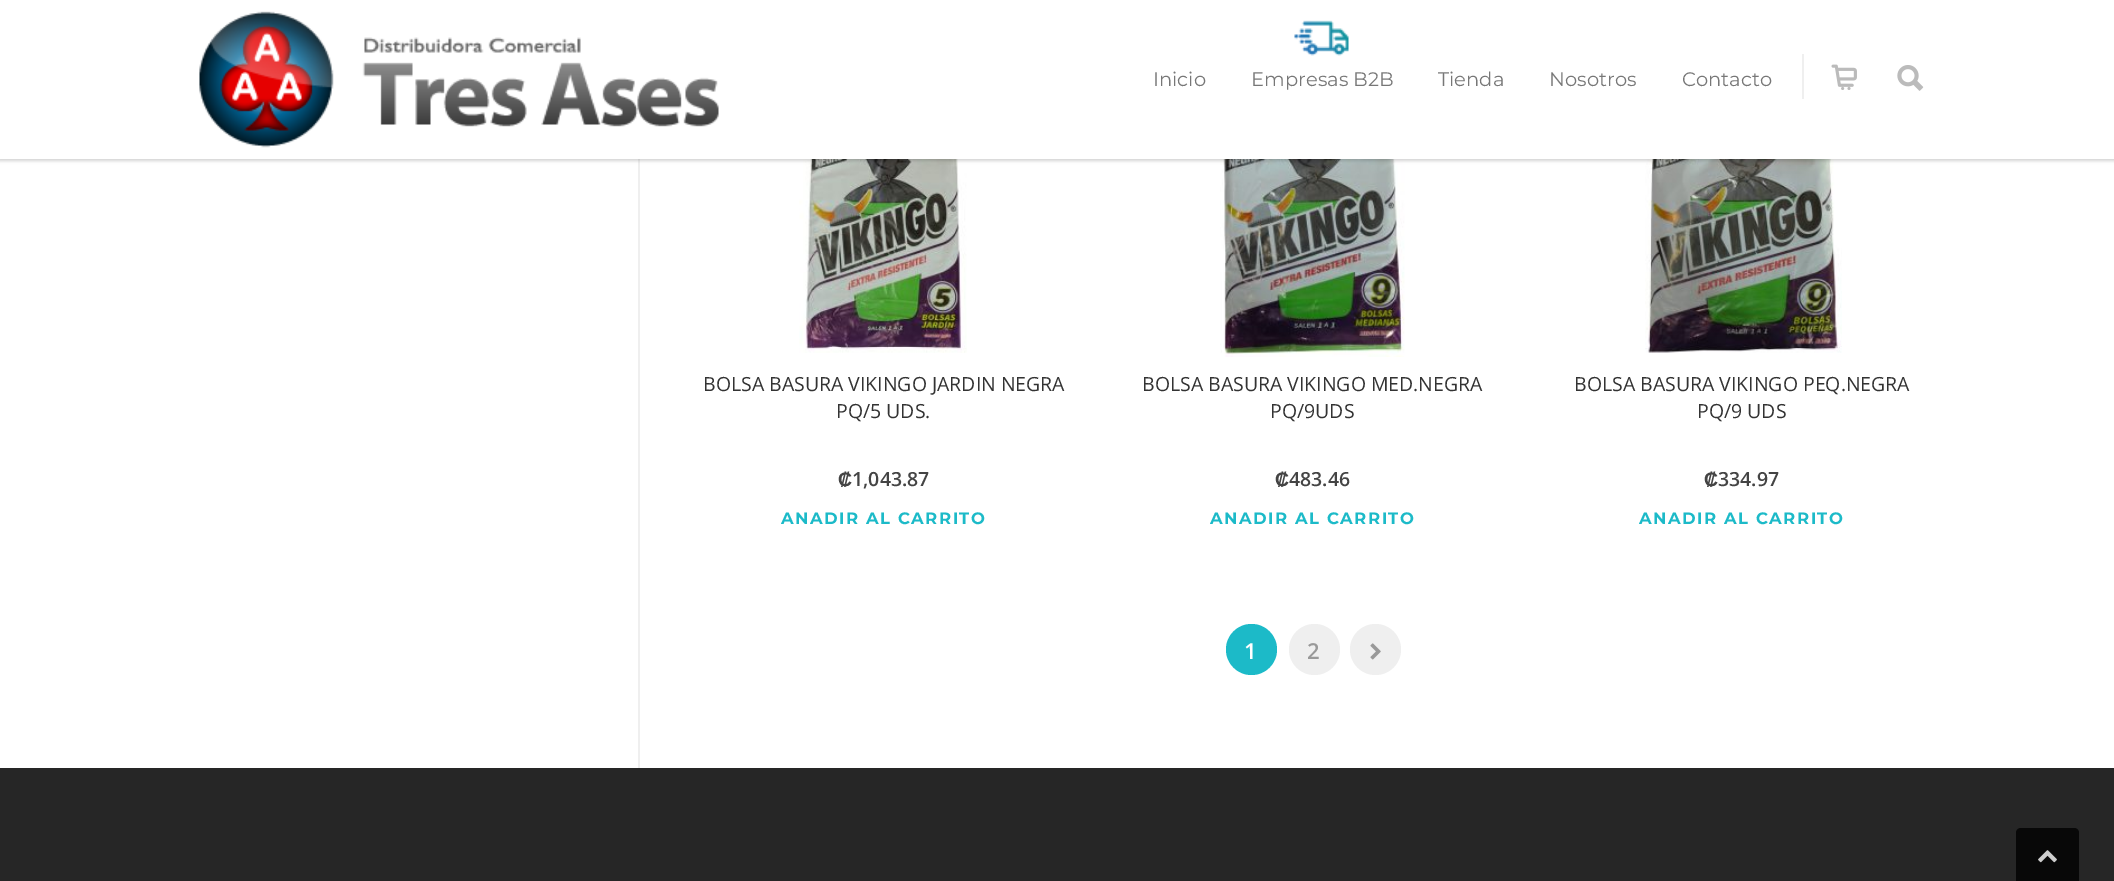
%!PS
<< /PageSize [2114 881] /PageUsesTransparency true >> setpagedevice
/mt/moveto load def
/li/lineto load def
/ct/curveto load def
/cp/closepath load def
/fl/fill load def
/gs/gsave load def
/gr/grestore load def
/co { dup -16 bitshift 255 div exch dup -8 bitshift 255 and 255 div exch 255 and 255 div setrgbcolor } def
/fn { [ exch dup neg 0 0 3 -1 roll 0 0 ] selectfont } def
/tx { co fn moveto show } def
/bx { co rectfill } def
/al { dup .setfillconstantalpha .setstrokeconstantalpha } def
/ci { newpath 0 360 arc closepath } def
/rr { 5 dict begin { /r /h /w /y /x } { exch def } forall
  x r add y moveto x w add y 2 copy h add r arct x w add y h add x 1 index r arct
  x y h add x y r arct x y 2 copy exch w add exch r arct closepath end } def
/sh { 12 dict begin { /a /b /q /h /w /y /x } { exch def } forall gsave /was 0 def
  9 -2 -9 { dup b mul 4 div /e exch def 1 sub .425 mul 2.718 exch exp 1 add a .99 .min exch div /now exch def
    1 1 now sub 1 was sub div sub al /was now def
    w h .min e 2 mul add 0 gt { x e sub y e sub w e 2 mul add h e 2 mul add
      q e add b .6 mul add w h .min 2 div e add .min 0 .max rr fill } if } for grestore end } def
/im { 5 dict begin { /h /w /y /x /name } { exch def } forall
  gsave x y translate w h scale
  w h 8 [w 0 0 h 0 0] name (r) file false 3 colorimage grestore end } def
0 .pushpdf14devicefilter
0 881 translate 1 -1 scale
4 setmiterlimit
0 0 2114 881 16#FFFFFF bx
638 159 2 609 16#EFEFEF bx
(media/5.raw) 799 159 168 194 im
(media/6.raw) 1220 159 185 198 im
(media/7.raw) 1645 159 197 194 im
16#000000 co
-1 -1 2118 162 0 1.5 .16 sh
0 0 2114 159 16#FFFFFF bx
(media/1.raw) 199 11 520 137 im
(media/2.raw) 1294 20 55 36 im
1802 54 2 45 16#EFEFEF bx
(media/3.raw) 1831 64 26 26 im
(media/4.raw) 1897 65 27 26 im
16#1CBAC8 co
1251.5 649.5 25.5 ci fl
16#EFEFEF co
1314.5 649.5 25.5 ci fl
1375.5 649.5 25.5 ci fl
(media/8.raw) 1370 643 11 17 im
0 768 2114 113 16#262626 bx
16#080808 co
2021 828 mt 2074 828 li 2077 828 2079 830 2079 833 ct 2079 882 li 2016 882 li 2016 833 li 2016 830 2018 828 2021 828 ct cp fl
(media/9.raw) 2038 850 19 13 im
(Inicio) 1153 86 /Montserrat-Regular 19.5 16#777777 tx
(Empresas B2B) 1251 86 /Montserrat-Regular 19.5 16#777777 tx
(Tienda) 1438 86 /Montserrat-Regular 19.5 16#777777 tx
(Nosotros) 1549 86 /Montserrat-Regular 19.5 16#777777 tx
(Contacto) 1682 86 /Montserrat-Regular 19.5 16#777777 tx
(BOLSA BASURA VIKINGO JARDIN NEGRA) 703 391 /OpenSans-Regular 19.5 16#333333 tx
(PQ/5 UDS.) 836 418 /OpenSans-Regular 19.5 16#333333 tx
(₡) 838 486 /LiberationSans-Bold 19.5 16#444444 tx
(1,043.87) 852 486 /OpenSans-SemiBold 19.5 16#444444 tx
gs
699 512 399 16 rectclip
/Montserrat-Bold 16.5 fn
16#1CBAC8 co
781 524 mt 1.5 0 (AÑADIR AL CARRITO) ashow
gr
(BOLSA BASURA VIKINGO MED.NEGRA) 1142 391 /OpenSans-Regular 19.5 16#333333 tx
(PQ/9UDS) 1270 418 /OpenSans-Regular 19.5 16#333333 tx
(₡) 1275 486 /LiberationSans-Bold 19.5 16#444444 tx
(483.46) 1289 486 /OpenSans-SemiBold 19.5 16#444444 tx
gs
1128 512 399 16 rectclip
/Montserrat-Bold 16.5 fn
16#1CBAC8 co
1210 524 mt 1.5 0 (AÑADIR AL CARRITO) ashow
gr
(BOLSA BASURA VIKINGO PEQ.NEGRA) 1574 391 /OpenSans-Regular 19.5 16#333333 tx
(PQ/9 UDS) 1697 418 /OpenSans-Regular 19.5 16#333333 tx
(₡) 1704 486 /LiberationSans-Bold 19.5 16#444444 tx
(334.97) 1718 486 /OpenSans-SemiBold 19.5 16#444444 tx
gs
1557 512 399 16 rectclip
/Montserrat-Bold 16.5 fn
16#1CBAC8 co
1639 524 mt 1.5 0 (AÑADIR AL CARRITO) ashow
gr
(1) 1244 659 /OpenSans-SemiBold 22 16#FFFFFF tx
(2) 1307 659 /OpenSans-SemiBold 22 16#999999 tx
.poppdf14devicefilter showpage
